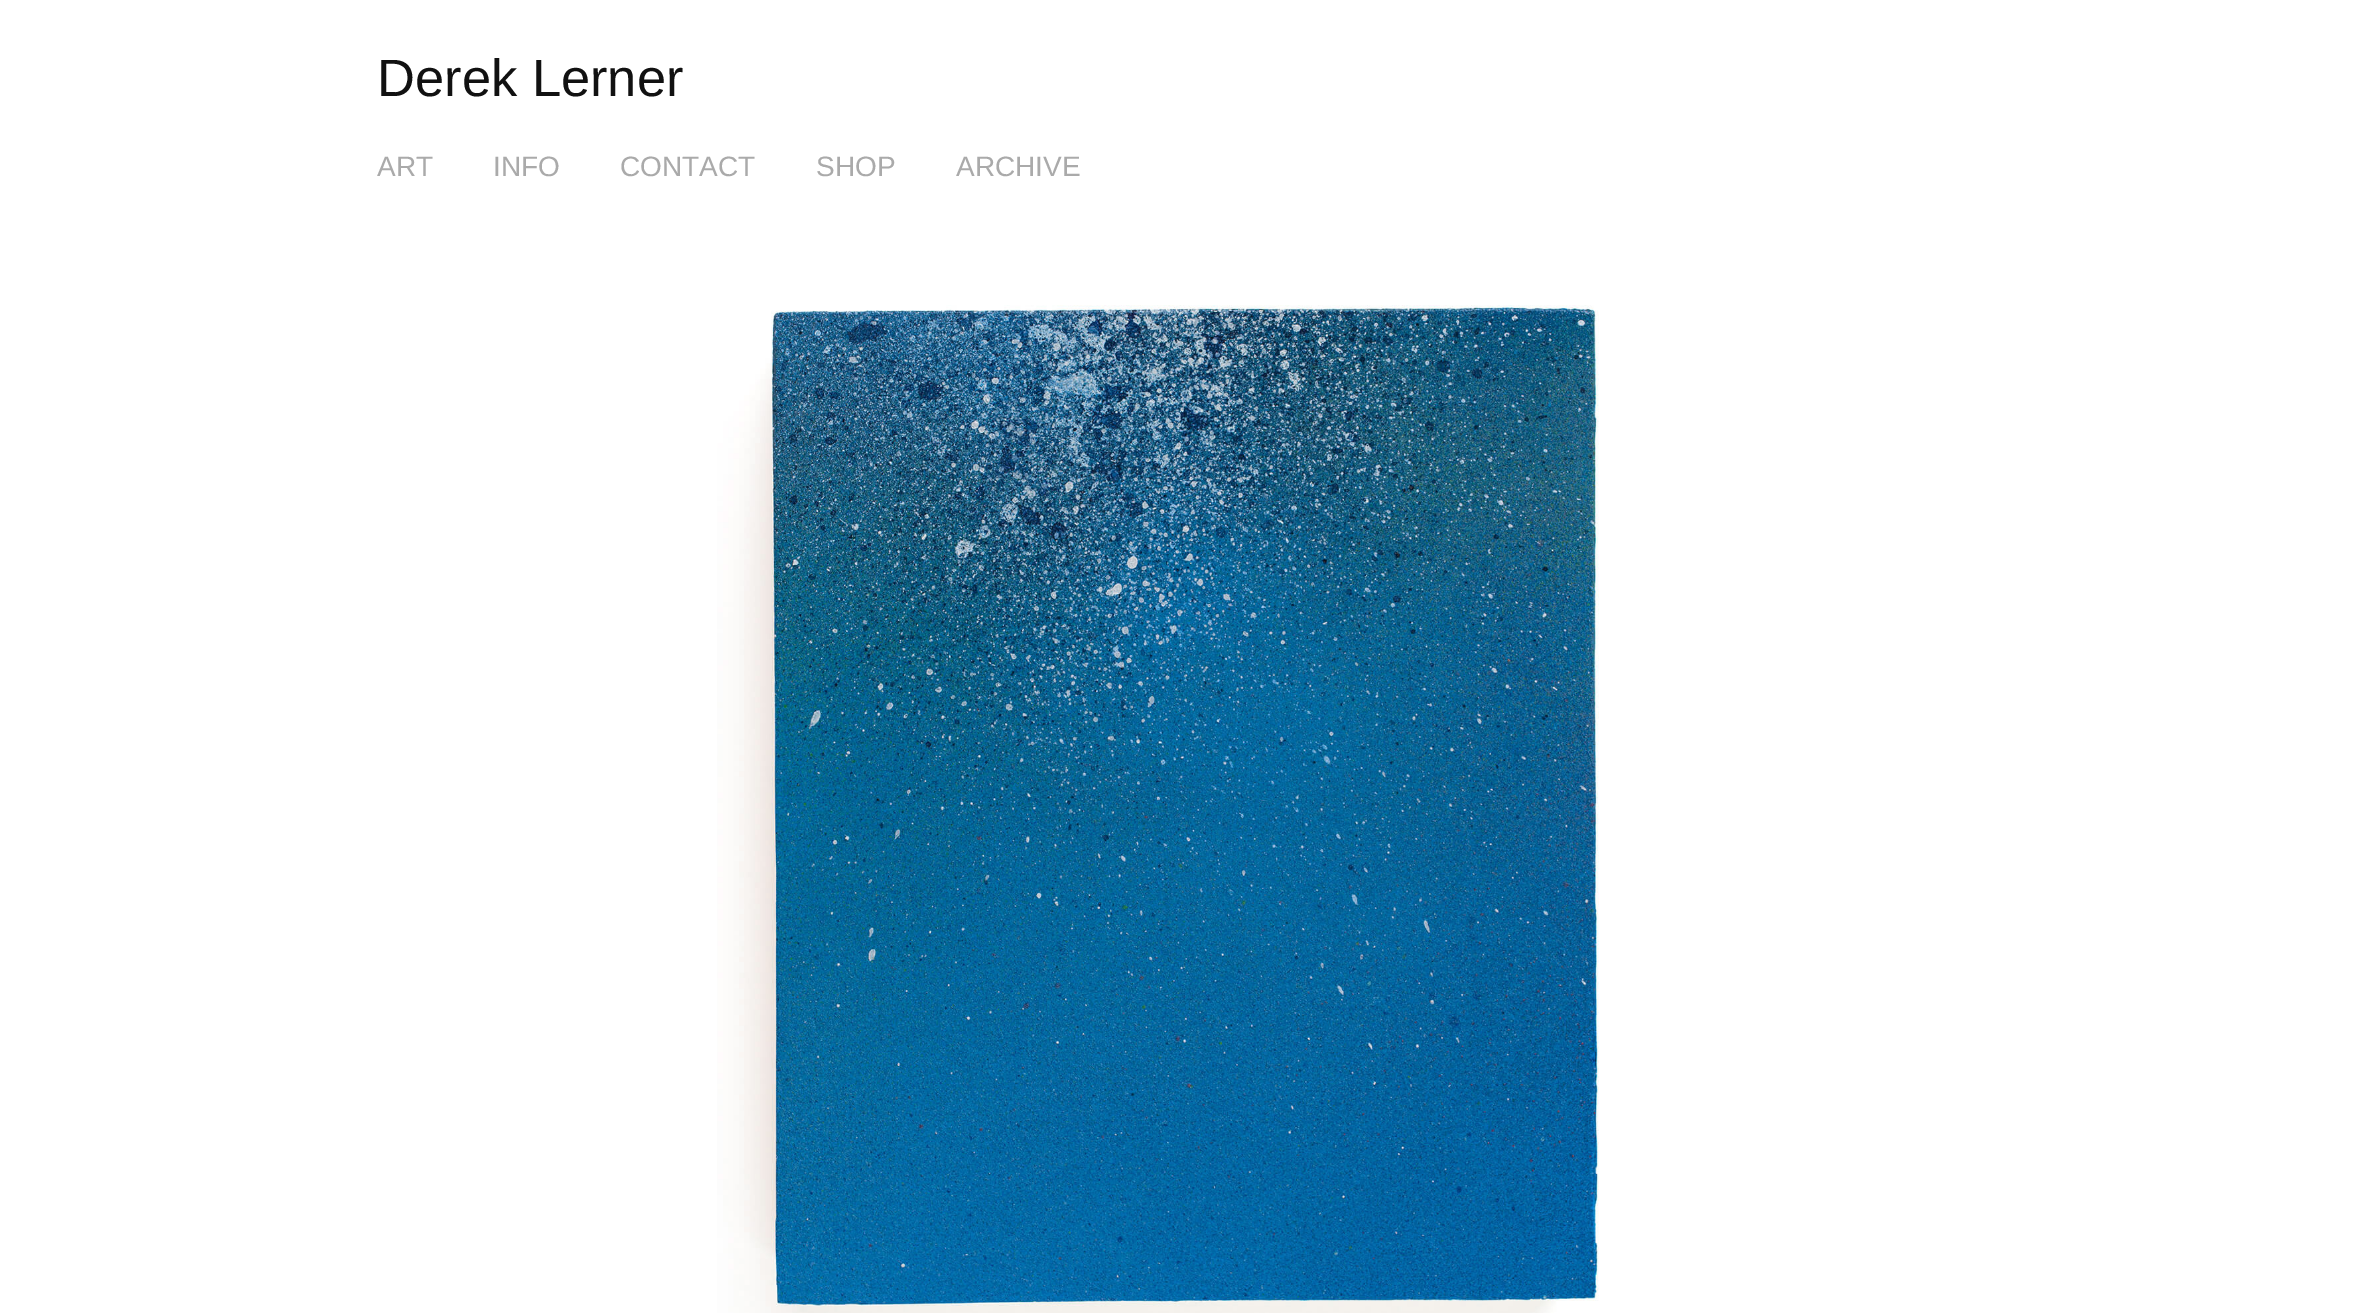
%!PS
<< /PageSize [2354 1313] >> setpagedevice
/co { dup -16 bitshift 255 div exch dup -8 bitshift 255 and 255 div exch 255 and 255 div setrgbcolor } def
/fn { [ exch dup neg 0 0 3 -1 roll 0 0 ] selectfont } def
/tx { co fn moveto show } def
/bx { co rectfill } def
/im { 5 dict begin { /h /w /y /x /name } { exch def } forall
  gsave x y translate w h scale
  w h 8 [w 0 0 h 0 0] name (r) file false 3 colorimage grestore end } def
0 1313 translate 1 -1 scale
4 setmiterlimit
0 0 2354 1313 16#FFFFFF bx
(media/1.raw) 717 305 882 1008 im
(Derek Lerner) 377 96 /LiberationSans-Regular 52.5 16#111111 tx
(ART) 377 176 /LiberationSans-Regular 28 16#AAAAAA tx
(INFO) 493 176 /LiberationSans-Regular 28 16#AAAAAA tx
(CONTACT) 620 176 /LiberationSans-Regular 28 16#AAAAAA tx
(SHOP) 816 176 /LiberationSans-Regular 28 16#AAAAAA tx
(ARCHIVE) 956 176 /LiberationSans-Regular 28 16#AAAAAA tx
showpage
